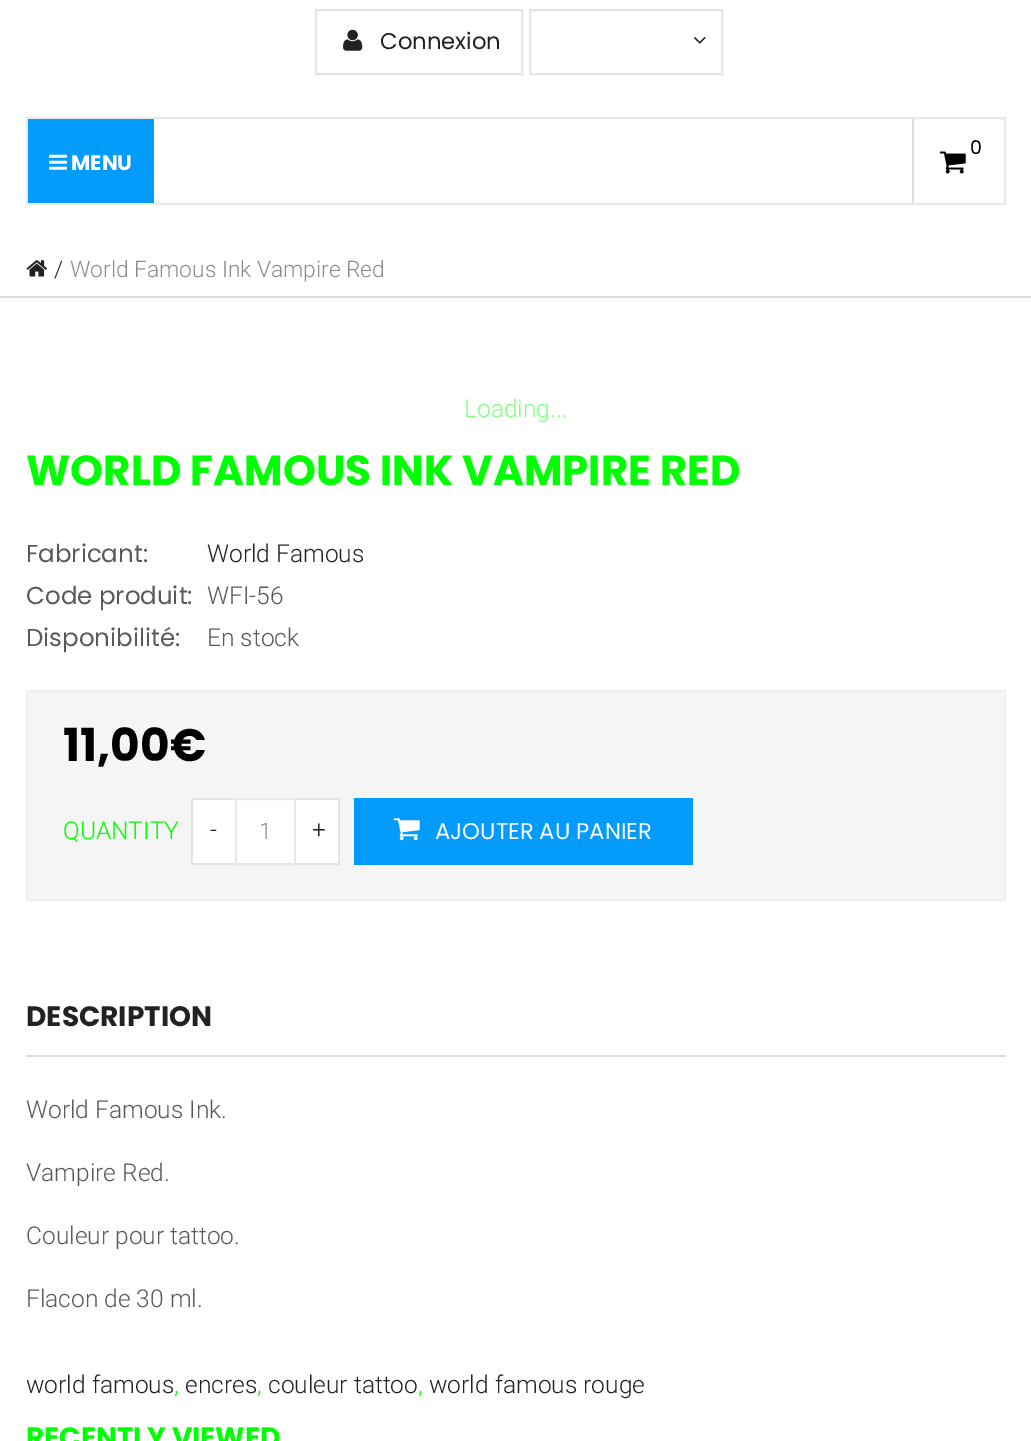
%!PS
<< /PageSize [1031 1441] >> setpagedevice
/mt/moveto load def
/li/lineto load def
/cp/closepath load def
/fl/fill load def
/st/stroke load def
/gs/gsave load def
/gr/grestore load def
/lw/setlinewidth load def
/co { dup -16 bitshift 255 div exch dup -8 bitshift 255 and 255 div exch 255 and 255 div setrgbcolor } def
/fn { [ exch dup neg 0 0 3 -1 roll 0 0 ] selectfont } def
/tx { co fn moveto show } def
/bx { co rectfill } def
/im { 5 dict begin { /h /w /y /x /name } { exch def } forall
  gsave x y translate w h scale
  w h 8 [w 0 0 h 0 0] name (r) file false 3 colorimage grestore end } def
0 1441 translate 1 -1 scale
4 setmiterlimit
0 0 1031 1441 16#FFFFFF bx
16#E5E5E5 co
2 lw
316 10 206 64 rectstroke
(media/1.raw) 343 29 20 22 im
530 10 192 64 rectstroke
(media/2.raw) 694 37 12 7 im
16#E9E9E9 co
27 118 978 86 rectstroke
912 119 2 84 16#DDDDDD bx
(media/3.raw) 939 151 27 23 im
28 119 126 84 16#039BFC bx
(media/4.raw) 49 154 18 16 im
(media/5.raw) 26 260 21 17 im
0 296 1031 2 16#DDDDDD bx
16#F5F5F5 co
27 691 mt 1005 691 li 1005 900 li 27 900 li cp gs fl gr
16#F0F0F2 co
st
193 800 42 63 16#FFFFFF bx
191 798 44 2 16#E4E4E4 bx
191 863 44 2 16#E4E4E4 bx
191 798 2 67 16#E4E4E4 bx
16#FFFFFF co
236 799 mt 295 799 li 295 864 li 236 864 li cp gs fl gr
16#E9E9E9 co
st
296 800 42 63 16#FFFFFF bx
296 798 44 2 16#E4E4E4 bx
338 798 2 67 16#E4E4E4 bx
296 863 44 2 16#E4E4E4 bx
354 798 339 67 16#039BFC bx
(media/6.raw) 393 818 27 23 im
26 1055 980 2 16#DDDDDD bx
(Connexion) 380 49 /Poppins-Regular 22.75 16#222222 tx
(0) 970 154 /Poppins-Regular 19 16#000000 tx
(MENU) 71 170 /Poppins-Bold 21 16#FFFFFF tx
(/) 54 277 /Roboto-Light 22.75 16#222222 tx
(World Famous Ink Vampire Red) 70 277 /Roboto-Light 22.75 16#8C8C8C tx
(Loading...) 464 417 /Roboto-Light 24.5 16#80FF80 tx
(WORLD FAMOUS INK VAMPIRE RED) 26 485 /Poppins-Bold 42 16#00FF00 tx
(Fabricant:) 26 562 /Poppins-Regular 24.5 16#595959 tx
(World Famous) 207 562 /Roboto-Light 24.5 16#222222 tx
(Code produit:) 26 604 /Poppins-Regular 24.5 16#595959 tx
(WFI-56) 207 604 /Roboto-Light 24.5 16#595959 tx
(Disponibilité:) 26 646 /Poppins-Regular 24.5 16#595959 tx
(En stock) 207 646 /Roboto-Light 24.5 16#595959 tx
(11,00€) 63 761 /Poppins-Bold 45.5 16#000000 tx
(QUANTITY) 63 839 /Roboto-Light 24.5 16#00FF00 tx
(-) 210 838 /Roboto-Light 24.5 16#222222 tx
(1) 259 839 /Roboto-Light 22.75 16#8C8C8C tx
(+) 312 838 /Roboto-Light 24.5 16#222222 tx
(AJOUTER AU PANIER) 435 839 /Poppins-Regular 22.75 16#FFFFFF tx
(DESCRIPTION) 26 1026 /Poppins-Bold 28 16#222222 tx
(World Famous Ink.) 26 1118 /Roboto-Light 24.5 16#595959 tx
(Vampire Red.) 26 1181 /Roboto-Light 24.5 16#595959 tx
(Couleur pour tattoo.) 26 1244 /Roboto-Light 24.5 16#595959 tx
(Flacon de 30 ml.) 26 1307 /Roboto-Light 24.5 16#595959 tx
(world famous) 26 1393 /Roboto-Light 24.5 16#222222 tx
(,) 174 1393 /Roboto-Light 24.5 16#00FF00 tx
(encres) 185 1393 /Roboto-Light 24.5 16#222222 tx
(,) 257 1393 /Roboto-Light 24.5 16#00FF00 tx
(couleur tattoo) 268 1393 /Roboto-Light 24.5 16#222222 tx
(,) 418 1393 /Roboto-Light 24.5 16#00FF00 tx
(world famous rouge) 429 1393 /Roboto-Light 24.5 16#222222 tx
(RECENTLY VIEWED) 26 1447 /Poppins-Bold 28 16#00FF00 tx
showpage
